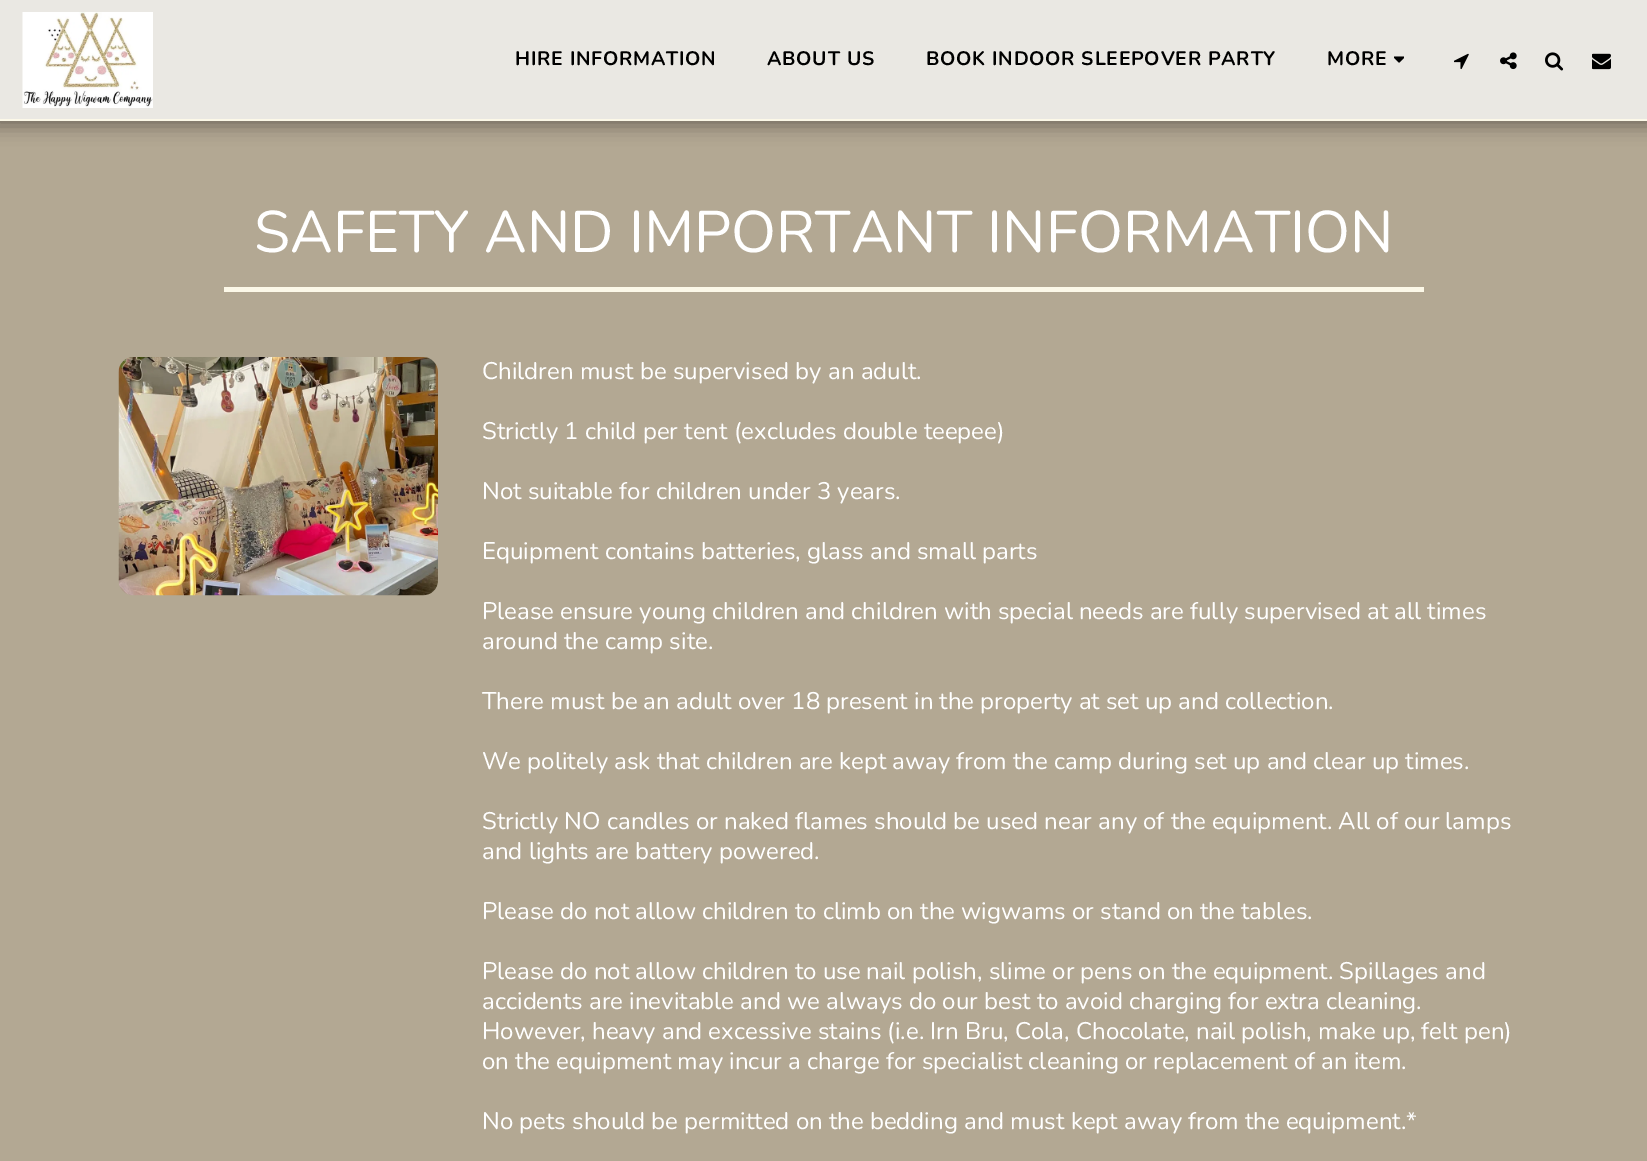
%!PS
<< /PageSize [1647 1161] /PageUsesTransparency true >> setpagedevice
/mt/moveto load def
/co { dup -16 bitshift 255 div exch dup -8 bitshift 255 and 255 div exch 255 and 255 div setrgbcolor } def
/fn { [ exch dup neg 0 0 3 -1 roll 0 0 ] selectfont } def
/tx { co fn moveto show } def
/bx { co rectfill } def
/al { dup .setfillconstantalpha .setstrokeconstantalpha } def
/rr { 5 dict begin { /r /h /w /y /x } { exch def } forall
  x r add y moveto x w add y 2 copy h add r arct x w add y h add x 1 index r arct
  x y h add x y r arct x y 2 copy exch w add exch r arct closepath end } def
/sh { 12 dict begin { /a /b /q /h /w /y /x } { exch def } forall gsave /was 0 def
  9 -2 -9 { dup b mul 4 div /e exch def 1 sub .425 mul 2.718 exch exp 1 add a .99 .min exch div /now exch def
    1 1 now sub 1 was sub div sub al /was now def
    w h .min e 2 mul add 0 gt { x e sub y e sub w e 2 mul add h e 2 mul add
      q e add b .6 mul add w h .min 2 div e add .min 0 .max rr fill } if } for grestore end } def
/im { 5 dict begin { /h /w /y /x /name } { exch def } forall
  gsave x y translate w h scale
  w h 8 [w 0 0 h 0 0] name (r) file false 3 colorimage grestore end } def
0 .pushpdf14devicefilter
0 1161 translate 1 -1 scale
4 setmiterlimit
0 0 1647 1161 16#B3A893 bx
16#000000 co
-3 0 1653 126 0 9 .35 sh
0 0 1647 119 16#EAE8E3 bx
0 119 1647 2 16#FCF8E8 bx
(media/1.raw) 22 12 131 96 im
(media/2.raw) 1394 56 10 7 im
(media/3.raw) 1454 53 15 17 im
(media/4.raw) 1500 52 17 18 im
(media/5.raw) 1545 52 19 19 im
(media/6.raw) 1592 53 19 17 im
224 287 1200 5 16#FCF8E8 bx
(media/7.raw) 118 357 320 239 im
/Nunito-Bold 19.5 fn
16#000000 co
515 65 mt .75 0 (HIRE INFORMATION) ashow
767 65 mt .75 0 (ABOUT US) ashow
926 65 mt .75 0 (BOOK INDOOR SLEEPOVER PARTY) ashow
1327 65 mt .75 0 (MORE) ashow
(SAFETY AND IMPORTANT INFORMATION) 254 252 /Nunito-Regular 58.6 16#FFFFFF tx
(Children must be supervised by an adult.) 482 379 /Nunito-Regular 24 16#FFFFFF tx
(Strictly 1 child per tent \(excludes double teepee\)) 482 439 /Nunito-Regular 24 16#FFFFFF tx
(Not suitable for children under 3 years.) 482 499 /Nunito-Regular 24 16#FFFFFF tx
(Equipment contains batteries, glass and small parts) 482 559 /Nunito-Regular 24 16#FFFFFF tx
(Please ensure young children and children with special needs are fully supervised at all times) 482 619 /Nunito-Regular 24 16#FFFFFF tx
(around the camp site.) 482 649 /Nunito-Regular 24 16#FFFFFF tx
(There must be an adult over 18 present in the property at set up and collection.) 482 709 /Nunito-Regular 24 16#FFFFFF tx
(We politely ask that children are kept away from the camp during set up and clear up times.) 482 769 /Nunito-Regular 24 16#FFFFFF tx
(Strictly NO candles or naked flames should be used near any of the equipment. All of our lamps) 482 829 /Nunito-Regular 24 16#FFFFFF tx
(and lights are battery powered.) 482 859 /Nunito-Regular 24 16#FFFFFF tx
(Please do not allow children to climb on the wigwams or stand on the tables.) 482 919 /Nunito-Regular 24 16#FFFFFF tx
(Please do not allow children to use nail polish, slime or pens on the equipment. Spillages and) 482 979 /Nunito-Regular 24 16#FFFFFF tx
(accidents are inevitable and we always do our best to avoid charging for extra cleaning.) 482 1009 /Nunito-Regular 24 16#FFFFFF tx
(However, heavy and excessive stains \(i.e. Irn Bru, Cola, Chocolate, nail polish, make up, felt pen\)) 482 1039 /Nunito-Regular 24 16#FFFFFF tx
(on the equipment may incur a charge for specialist cleaning or replacement of an item.) 482 1069 /Nunito-Regular 24 16#FFFFFF tx
(No pets should be permitted on the bedding and must kept away from the equipment.*) 482 1129 /Nunito-Regular 24 16#FFFFFF tx
.poppdf14devicefilter showpage
